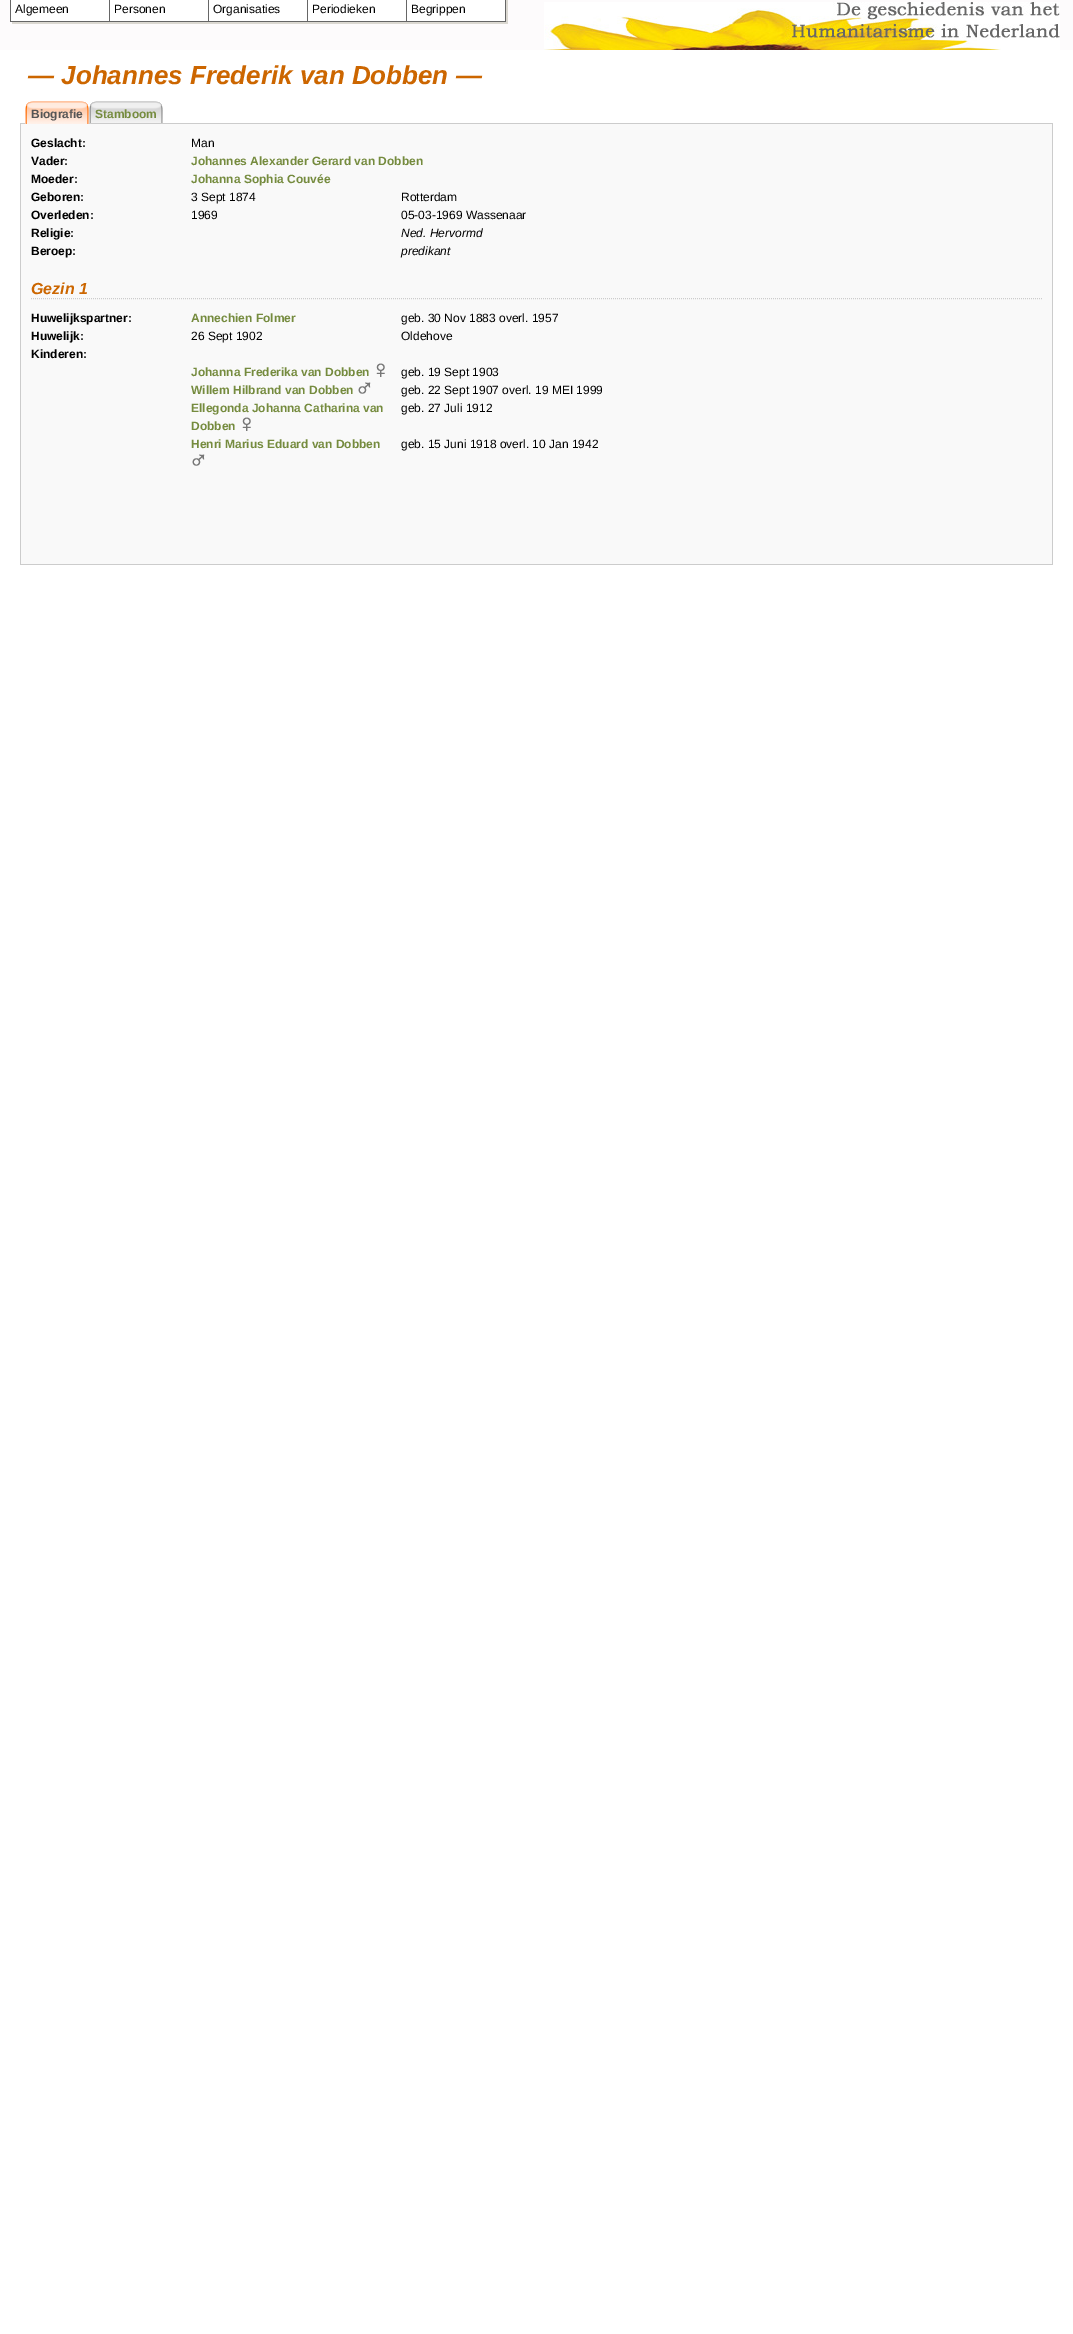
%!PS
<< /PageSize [1073 2334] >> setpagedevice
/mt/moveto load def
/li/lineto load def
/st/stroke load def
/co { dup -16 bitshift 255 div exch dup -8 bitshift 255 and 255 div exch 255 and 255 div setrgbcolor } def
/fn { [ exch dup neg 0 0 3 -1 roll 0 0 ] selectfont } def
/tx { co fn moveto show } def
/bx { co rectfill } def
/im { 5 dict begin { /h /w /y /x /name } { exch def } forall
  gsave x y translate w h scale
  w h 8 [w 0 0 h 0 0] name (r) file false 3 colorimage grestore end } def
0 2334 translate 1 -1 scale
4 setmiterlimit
0 0 1073 2334 16#FFFFFF bx
0 0 1073 50 16#FDFBFC bx
(media/1.raw) 544 2 516 48 im
408 0 100 24 16#DBD8D1 bx
10 0 496 22 16#666666 bx
11 0 98 21 16#FFFFFF bx
110 0 98 21 16#FFFFFF bx
209 0 98 21 16#FFFFFF bx
308 0 98 21 16#FFFFFF bx
407 0 98 21 16#FFFFFF bx
12 22 396 2 16#DBD8D1 bx
20 123 1033 1 16#CCCCCC bx
(media/2.raw) 33 101 56 23 im
(media/3.raw) 25 101 8 23 im
(media/4.raw) 96 101 67 22 im
(media/5.raw) 89 101 7 22 im
21 124 1031 440 16#F9F9F9 bx
1052 124 1 441 16#CCCCCC bx
20 564 1033 1 16#CCCCCC bx
20 124 1 441 16#CCCCCC bx
[1 1] 0 setdash
31 298.5 mt 1042 298.5 li st
(media/6.raw) 376 363 9 14 im
(media/7.raw) 358 382 13 12 im
(media/6.raw) 242 417 9 14 im
(media/7.raw) 192 454 13 12 im
(Algemeen) 15 13 /LiberationSans-Regular 12 16#000000 tx
(Personen) 114 13 /LiberationSans-Regular 12 16#000000 tx
(Organisaties) 213 13 /LiberationSans-Regular 12 16#000000 tx
(Periodieken) 312 13 /LiberationSans-Regular 12 16#000000 tx
(Begrippen) 411 13 /LiberationSans-Regular 12 16#000000 tx
(— Johannes Frederik van Dobben —) 28 84 /LiberationSans-BoldItalic 26 16#CC6600 tx
(Biografie) 31 118 /LiberationSans-Bold 12 16#555555 tx
(Stamboom) 95 118 /LiberationSans-Bold 12 16#758B3E tx
(Geslacht:) 31 147 /LiberationSans-Bold 12 16#000000 tx
(Man) 191 147 /LiberationSans-Regular 12 16#000000 tx
(Vader:) 31 165 /LiberationSans-Bold 12 16#000000 tx
(Johannes Alexander Gerard van Dobben) 191 165 /LiberationSans-Bold 12 16#758B3E tx
(Moeder:) 31 183 /LiberationSans-Bold 12 16#000000 tx
(Johanna Sophia Couvée) 191 183 /LiberationSans-Bold 12 16#758B3E tx
(Geboren:) 31 201 /LiberationSans-Bold 12 16#000000 tx
(3 Sept 1874) 191 201 /LiberationSans-Regular 12 16#000000 tx
(Rotterdam) 401 201 /LiberationSans-Regular 12 16#000000 tx
(Overleden:) 31 219 /LiberationSans-Bold 12 16#000000 tx
(1969) 191 219 /LiberationSans-Regular 12 16#000000 tx
(05-03-1969 Wassenaar) 401 219 /LiberationSans-Regular 12 16#000000 tx
(Religie:) 31 237 /LiberationSans-Bold 12 16#000000 tx
(Ned. Hervormd) 401 237 /LiberationSans-Italic 12 16#000000 tx
(Beroep:) 31 255 /LiberationSans-Bold 12 16#000000 tx
(predikant) 401 255 /LiberationSans-Italic 12 16#000000 tx
(Gezin 1) 31 294 /LiberationSans-BoldItalic 16 16#CC6600 tx
(Huwelijkspartner:) 31 322 /LiberationSans-Bold 12 16#000000 tx
(Annechien Folmer) 191 322 /LiberationSans-Bold 12 16#758B3E tx
(geb. 30 Nov 1883 overl. 1957) 401 322 /LiberationSans-Regular 12 16#000000 tx
(Huwelijk:) 31 340 /LiberationSans-Bold 12 16#000000 tx
(26 Sept 1902) 191 340 /LiberationSans-Regular 12 16#000000 tx
(Oldehove) 401 340 /LiberationSans-Regular 12 16#000000 tx
(Kinderen:) 31 358 /LiberationSans-Bold 12 16#000000 tx
(Johanna Frederika van Dobben) 191 376 /LiberationSans-Bold 12 16#758B3E tx
(geb. 19 Sept 1903) 401 376 /LiberationSans-Regular 12 16#000000 tx
(Willem Hilbrand van Dobben) 191 394 /LiberationSans-Bold 12 16#758B3E tx
(geb. 22 Sept 1907 overl. 19 MEI 1999) 401 394 /LiberationSans-Regular 12 16#000000 tx
(Ellegonda Johanna Catharina van) 191 412 /LiberationSans-Bold 12 16#758B3E tx
(Dobben) 191 430 /LiberationSans-Bold 12 16#758B3E tx
(geb. 27 Juli 1912) 401 412 /LiberationSans-Regular 12 16#000000 tx
(Henri Marius Eduard van Dobben) 191 448 /LiberationSans-Bold 12 16#758B3E tx
(geb. 15 Juni 1918 overl. 10 Jan 1942) 401 448 /LiberationSans-Regular 12 16#000000 tx
showpage
